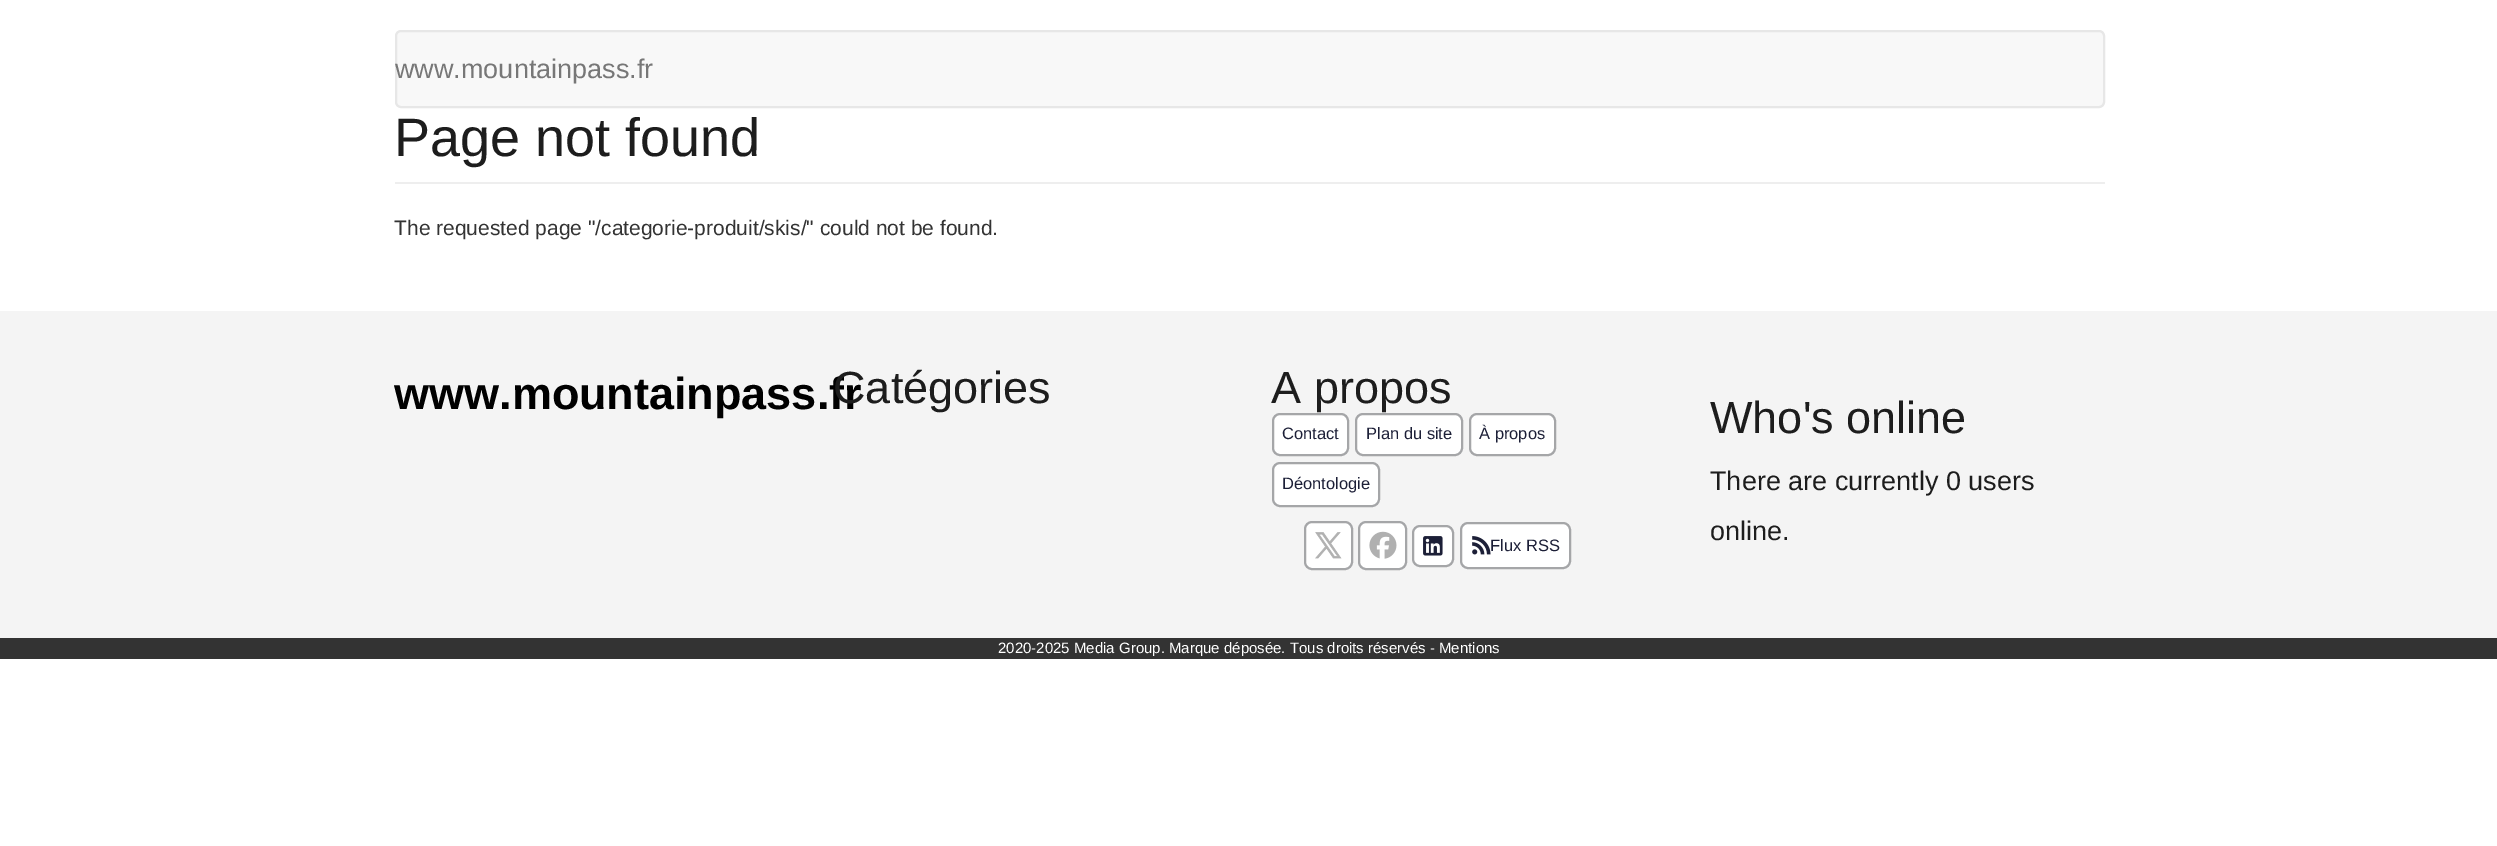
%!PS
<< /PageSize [2497 846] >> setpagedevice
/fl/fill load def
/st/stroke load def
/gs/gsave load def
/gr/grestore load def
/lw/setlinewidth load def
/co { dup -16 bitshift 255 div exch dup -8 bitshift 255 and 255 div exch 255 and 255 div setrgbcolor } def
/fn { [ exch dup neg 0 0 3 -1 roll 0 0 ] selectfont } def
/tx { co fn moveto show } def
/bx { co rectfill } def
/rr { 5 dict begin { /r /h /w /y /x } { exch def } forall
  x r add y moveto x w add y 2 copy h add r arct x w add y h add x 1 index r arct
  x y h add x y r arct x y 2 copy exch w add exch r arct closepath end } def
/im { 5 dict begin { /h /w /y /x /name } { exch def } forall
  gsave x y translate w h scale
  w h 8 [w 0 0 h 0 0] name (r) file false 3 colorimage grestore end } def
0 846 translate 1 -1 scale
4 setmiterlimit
0 0 2497 846 16#FFFFFF bx
16#F8F8F8 co
396 31 1708 76 5 rr gs fl gr
16#E7E7E7 co
2 lw
st
395 182 1710 2 16#EEEEEE bx
0 311 2497 327 16#F4F4F4 bx
16#FFFFFF co
1273 414 75 41 7 rr gs fl gr
16#A5A6A8 co
st
16#FFFFFF co
1356 414 106 41 7 rr gs fl gr
16#A5A6A8 co
st
16#FFFFFF co
1470 414 85 41 7 rr gs fl gr
16#A5A6A8 co
st
16#FFFFFF co
1273 463 106 43 7 rr gs fl gr
16#A5A6A8 co
st
16#FFFFFF co
1305 522 47 47 7 rr gs fl gr
16#A5A6A8 co
st
(media/1.raw) 1315 532 27 27 im
16#FFFFFF co
1359 522 47 47 7 rr gs fl gr
16#A5A6A8 co
st
(media/2.raw) 1369 531 28 28 im
16#FFFFFF co
1413 526 40 40 7 rr gs fl gr
16#A5A6A8 co
st
(media/3.raw) 1423 536 20 20 im
16#FFFFFF co
1461 523 109 45 7 rr gs fl gr
16#A5A6A8 co
st
(media/4.raw) 1472 536 19 19 im
0 638 2497 21 16#333333 bx
(www.mountainpass.fr) 395 78 /LiberationSans-Regular 27 16#777777 tx
(Page not found) 394 156 /LiberationSans-Regular 54 16#1D1D1D tx
(The requested page "/categorie-produit/skis/" could not be found.) 394 235 /LiberationSans-Regular 21 16#333333 tx
(www.mountainpass.fr) 394 409 /LiberationSans-Bold 45 16#000000 tx
(Catégories) 833 403 /LiberationSans-Regular 45 16#1D1D1D tx
(A propos) 1271 403 /LiberationSans-Regular 45 16#1D1D1D tx
(Contact) 1282 439 /LiberationSans-Regular 16.5 16#1C1F37 tx
(Plan du site) 1366 439 /LiberationSans-Regular 16.5 16#1C1F37 tx
(À propos) 1479 439 /LiberationSans-Regular 16.5 16#1C1F37 tx
(Déontologie) 1282 489 /LiberationSans-Regular 16.5 16#1C1F37 tx
(Flux RSS) 1490 551 /LiberationSans-Regular 16.5 16#1C1F37 tx
(Who's online) 1710 433 /LiberationSans-Regular 45 16#1D1D1D tx
(There are currently 0 users) 1710 490 /LiberationSans-Regular 27 16#1D1D1D tx
(online.) 1710 540 /LiberationSans-Regular 27 16#1D1D1D tx
(2020-2025 Media Group. Marque déposée. Tous droits réservés - Mentions) 998 653 /LiberationSans-Regular 15 16#FFFFFF tx
showpage
